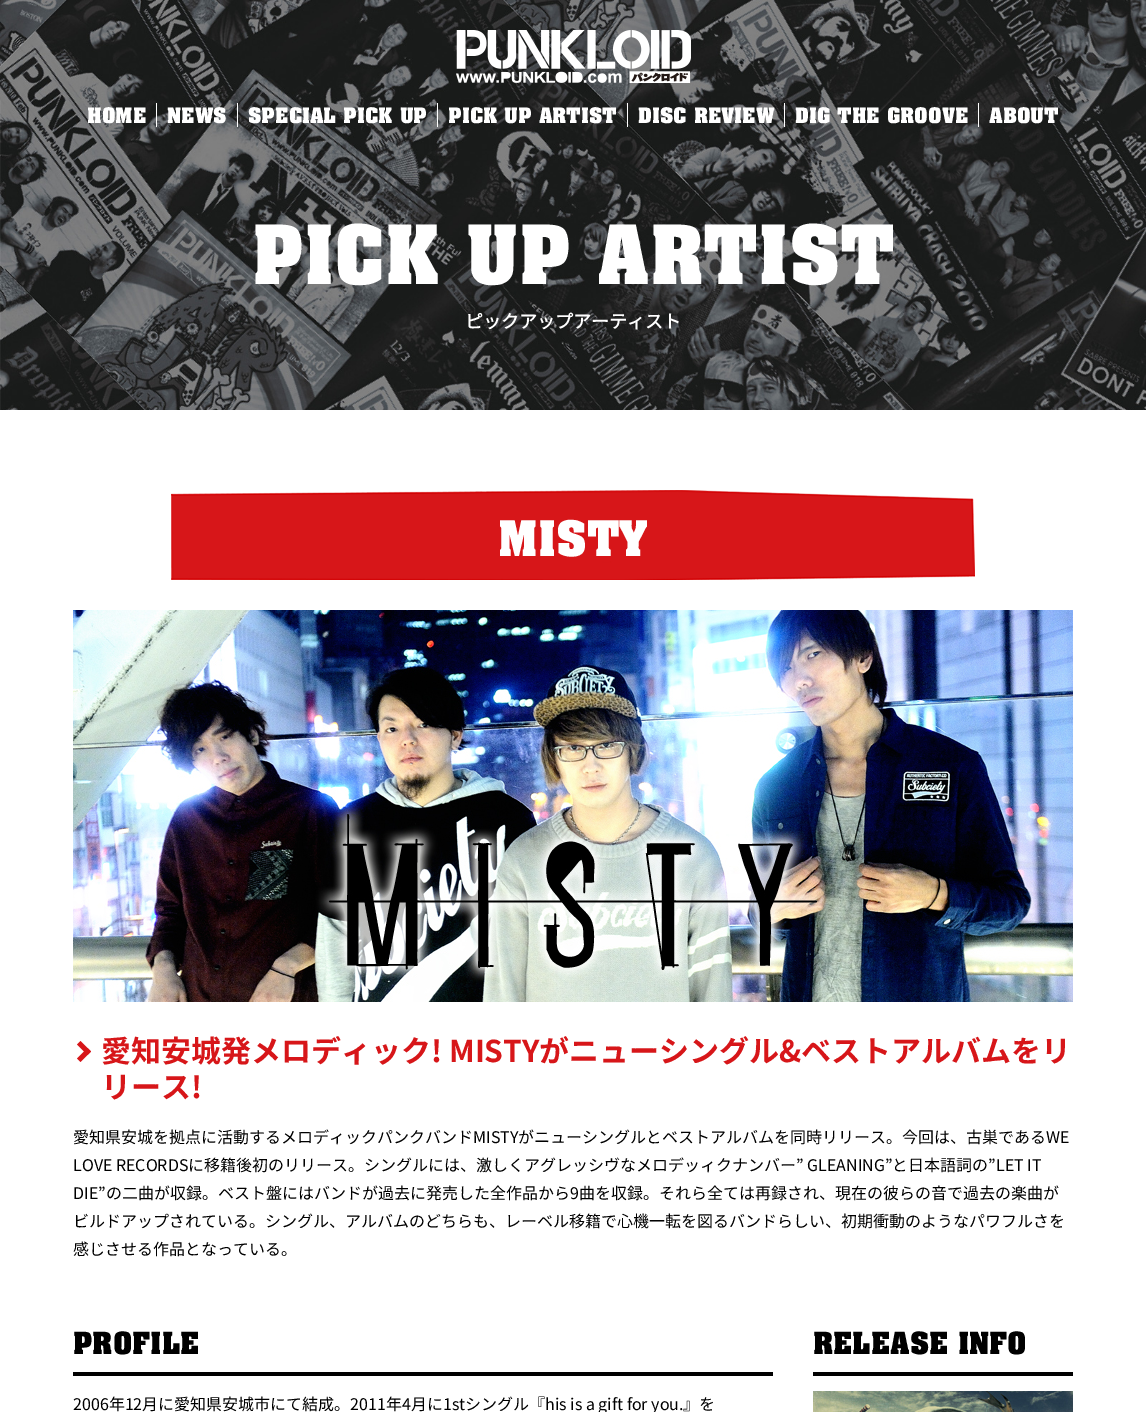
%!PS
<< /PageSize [1146 1412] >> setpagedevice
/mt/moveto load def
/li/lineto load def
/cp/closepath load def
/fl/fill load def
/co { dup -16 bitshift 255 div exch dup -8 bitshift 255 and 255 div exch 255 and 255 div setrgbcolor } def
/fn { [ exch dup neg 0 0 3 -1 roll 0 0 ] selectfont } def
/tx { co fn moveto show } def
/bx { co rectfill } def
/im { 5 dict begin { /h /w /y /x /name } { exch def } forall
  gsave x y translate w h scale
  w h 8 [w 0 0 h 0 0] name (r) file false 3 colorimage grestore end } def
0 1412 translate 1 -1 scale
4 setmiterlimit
0 0 1146 1412 16#FFFFFF bx
(media/1.raw) 0 0 1146 410 im
(media/2.raw) 456 30 235 53 im
156 103 1 24 16#FFFFFF bx
237 103 1 24 16#FFFFFF bx
437 103 1 24 16#FFFFFF bx
627 103 1 24 16#FFFFFF bx
784 103 1 24 16#FFFFFF bx
978 103 1 24 16#FFFFFF bx
(media/3.raw) 171 490 804 90 im
(media/4.raw) 73 610 1000 392 im
16#D71619 co
80.5 1041 mt 91 1051.5 li 87.5 1055 li 77 1044.5 li cp fl
87.5 1048 mt 91 1051.5 li 80.5 1062 li 77 1058.5 li cp fl
73 1372 700 4 16#000000 bx
813 1372 260 4 16#000000 bx
(media/5.raw) 813 1391 260 21 im
(HOME) 87 123 /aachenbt-Bold 21 16#FFFFFF tx
(NEWS) 167 123 /aachenbt-Bold 21 16#FFFFFF tx
(SPECIAL PICK UP) 248 123 /aachenbt-Bold 21 16#FFFFFF tx
(PICK UP ARTIST) 448 123 /aachenbt-Bold 21 16#FFFFFF tx
(DISC REVIEW) 638 123 /aachenbt-Bold 21 16#FFFFFF tx
(DIG THE GROOVE) 795 123 /aachenbt-Bold 21 16#FFFFFF tx
(ABOUT) 989 123 /aachenbt-Bold 21 16#FFFFFF tx
(PICK UP ARTIST) 252 284 /aachenbt-Bold 80 16#FFFFFF tx
(ピックアップアーティスト) 465 328 /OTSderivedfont-Bold 18 16#FFFFFF tx
(MISTY) 498 556 /aachenbt-Bold 48 16#FFFFFF tx
(愛知安城発メロディック! MISTYがニューシングル&ベストアルバムをリ) 101 1062 /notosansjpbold-Bold 30 16#D71619 tx
(リース!) 101 1098 /notosansjpbold-Bold 30 16#D71619 tx
(愛知県安城を拠点に活動するメロディックパンクバンドMISTYがニューシングルとベストアルバムを同時リリース。今回は、古巣であるWE) 73 1143 /OTSderivedfont-Regular 16 16#000000 tx
(LOVE RECORDSに移籍後初のリリース。シングルには、激しくアグレッシヴなメロデッィクナンバー” GLEANING”と日本語詞の”LET IT) 73 1171 /OTSderivedfont-Regular 16 16#000000 tx
(DIE”の二曲が収録。ベスト盤にはバンドが過去に発売した全作品から9曲を収録。それら全ては再録され、現在の彼らの音で過去の楽曲が) 73 1199 /OTSderivedfont-Regular 16 16#000000 tx
(ビルドアップされている。シングル、アルバムのどちらも、レーベル移籍で心機一転を図るバンドらしい、初期衝動のようなパワフルさを) 73 1227 /OTSderivedfont-Regular 16 16#000000 tx
(感じさせる作品となっている。) 73 1255 /OTSderivedfont-Regular 16 16#000000 tx
(PROFILE) 73 1354 /aachenbt-Bold 30 16#000000 tx
(2006年12月に愛知県安城市にて結成。2011年4月に1stシングル『his is a gift for you.』を) 73 1410 /OTSderivedfont-Regular 16 16#000000 tx
(RELEASE INFO) 813 1354 /aachenbt-Bold 30 16#000000 tx
showpage
